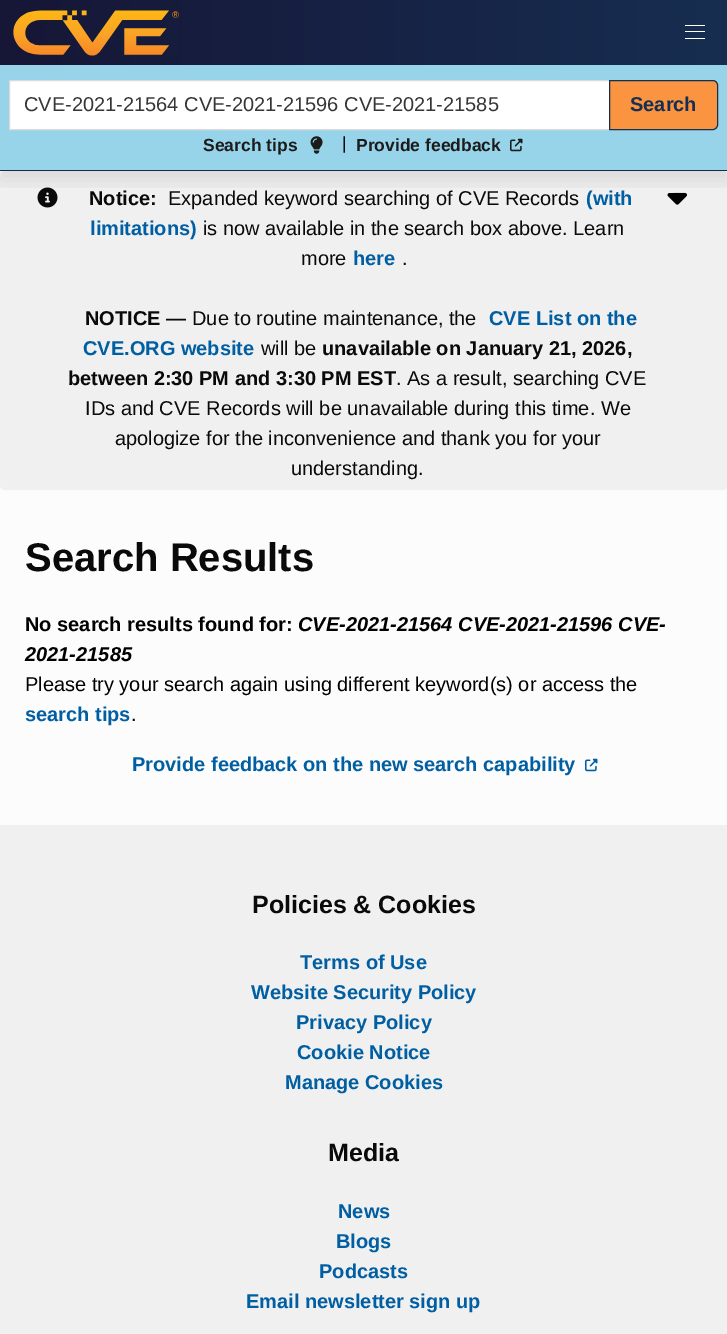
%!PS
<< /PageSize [727 1334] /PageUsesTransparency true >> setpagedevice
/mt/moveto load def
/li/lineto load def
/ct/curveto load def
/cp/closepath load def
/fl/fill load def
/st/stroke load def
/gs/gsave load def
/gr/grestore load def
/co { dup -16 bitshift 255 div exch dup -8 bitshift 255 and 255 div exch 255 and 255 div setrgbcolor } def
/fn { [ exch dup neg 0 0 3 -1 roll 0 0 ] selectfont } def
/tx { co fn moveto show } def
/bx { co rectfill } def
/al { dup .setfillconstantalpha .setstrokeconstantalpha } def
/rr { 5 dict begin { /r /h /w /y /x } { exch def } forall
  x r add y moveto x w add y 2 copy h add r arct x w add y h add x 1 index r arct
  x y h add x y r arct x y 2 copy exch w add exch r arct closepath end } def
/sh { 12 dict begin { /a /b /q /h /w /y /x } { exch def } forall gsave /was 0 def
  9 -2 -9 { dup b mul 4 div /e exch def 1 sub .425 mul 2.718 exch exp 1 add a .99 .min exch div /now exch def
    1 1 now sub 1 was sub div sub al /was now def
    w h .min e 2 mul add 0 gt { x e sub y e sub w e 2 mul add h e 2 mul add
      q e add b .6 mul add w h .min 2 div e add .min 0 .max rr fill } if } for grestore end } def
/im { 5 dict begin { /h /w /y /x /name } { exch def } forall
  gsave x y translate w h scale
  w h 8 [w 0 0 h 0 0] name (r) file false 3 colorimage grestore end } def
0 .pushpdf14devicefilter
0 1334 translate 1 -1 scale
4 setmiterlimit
0 0 727 1334 16#FCFCFC bx
0 65 727 105 16#97D4EA bx
0 170 727 1 16#162E51 bx
16#F0F0F0 co
0 171 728 319 5 rr fl
(media/4.raw) 37 187 21 21 im
(media/5.raw) 667 192 20 13 im
gs
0 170 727 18 rectclip
16#0A0A0A co
0 75 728 105 0 10 .1 sh
gr
gs 0 0 mt 727 0 li 727 65 li 0 65 li cp clip newpath
<< /ShadingType 2 /ColorSpace /DeviceRGB /Coords [0 33 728 32] /Extend [true true] /Function << /FunctionType 2 /Domain [0 1] /C0 [.086 .086 .212] /C1 [.086 .18 .318] /N 1 >> >> shfill gr
(media/1.raw) 13 10 166 46 im
685 25 20 1 16#FFFFFF bx
685 31 20 1 16#FFFFFF bx
685 38 20 1 16#FFFFFF bx
9.5 80.5 mt 609.5 80.5 li 609.5 129.5 li 9.5 129.5 li cp gs fl gr
16#DBDBDB co
st
16#FA9441 co
609.5 80.5 mt 713 80.5 li 715.5 80.5 717.5 82.5 717.5 85 ct 717.5 125 li 717.5 127.5 715.5 129.5 713 129.5 ct 609.5 129.5 li cp gs fl gr
16#162E51 co
st
(media/2.raw) 310 136 13 18 im
(media/3.raw) 510 138 13 14 im
(media/6.raw) 585 758 13 14 im
0 825 727 509 16#F0F0F0 bx
(CVE-2021-21564 CVE-2021-21596 CVE-2021-21585) 24 111 /LiberationSans-Regular 20 16#363636 tx
(Search) 630 111 /LiberationSans-Bold 20 16#162E51 tx
(Search tips) 203 151 /LiberationSans-Bold 17.5 16#1B1B1B tx
(|) 342 149 /LiberationSans-Regular 17.5 16#0A0A0A tx
(Provide feedback) 356 151 /LiberationSans-Bold 17.5 16#1B1B1B tx
(Notice:) 89 205 /LiberationSans-Bold 20 16#0A0A0A tx
(Expanded keyword searching of CVE Records) 168 205 /LiberationSans-Regular 20 16#0A0A0A tx
(\(with) 586 205 /LiberationSans-Bold 20 16#005EA2 tx
(limitations\)) 90 235 /LiberationSans-Bold 20 16#005EA2 tx
(is now available in the search box above. Learn) 203 235 /LiberationSans-Regular 20 16#0A0A0A tx
(more) 301 265 /LiberationSans-Regular 20 16#0A0A0A tx
(here) 353 265 /LiberationSans-Bold 20 16#005EA2 tx
(.) 402 265 /LiberationSans-Regular 20 16#0A0A0A tx
(NOTICE —) 85 325 /LiberationSans-Bold 20 16#0A0A0A tx
(Due to routine maintenance, the) 192 325 /LiberationSans-Regular 20 16#0A0A0A tx
(CVE List on the) 489 325 /LiberationSans-Bold 20 16#005EA2 tx
(CVE.ORG website) 83 355 /LiberationSans-Bold 20 16#005EA2 tx
(will be) 261 355 /LiberationSans-Regular 20 16#0A0A0A tx
(unavailable on January 21, 2026,) 322 355 /LiberationSans-Bold 20 16#0A0A0A tx
(between 2:30 PM and 3:30 PM EST) 68 385 /LiberationSans-Bold 20 16#0A0A0A tx
(. As a result, searching CVE) 396 385 /LiberationSans-Regular 20 16#0A0A0A tx
(IDs and CVE Records will be unavailable during this time. We) 85 415 /LiberationSans-Regular 20 16#0A0A0A tx
(apologize for the inconvenience and thank you for your) 115 445 /LiberationSans-Regular 20 16#0A0A0A tx
(understanding.) 291 475 /LiberationSans-Regular 20 16#0A0A0A tx
(Search Results) 25 571 /LiberationSans-Bold 40 16#0A0A0A tx
(No search results found for:) 25 631 /LiberationSans-Bold 20 16#000000 tx
(CVE-2021-21564 CVE-2021-21596 CVE-) 298 631 /LiberationSans-BoldItalic 20 16#000000 tx
(2021-21585) 25 661 /LiberationSans-BoldItalic 20 16#000000 tx
(Please try your search again using different keyword\(s\) or access the) 25 691 /LiberationSans-Regular 20 16#000000 tx
(search tips) 25 721 /LiberationSans-Bold 20 16#005EA2 tx
(.) 131 721 /LiberationSans-Regular 20 16#000000 tx
(Provide feedback on the new search capability) 132 771 /LiberationSans-Bold 20 16#005EA2 tx
(Policies & Cookies) 252 913 /LiberationSans-Bold 25 16#0A0A0A tx
(Terms of Use) 300 969 /LiberationSans-Bold 20 16#005EA2 tx
(Website Security Policy) 251 999 /LiberationSans-Bold 20 16#005EA2 tx
(Privacy Policy) 296 1029 /LiberationSans-Bold 20 16#005EA2 tx
(Cookie Notice) 297 1059 /LiberationSans-Bold 20 16#005EA2 tx
(Manage Cookies) 285 1089 /LiberationSans-Bold 20 16#005EA2 tx
(Media) 328 1161 /LiberationSans-Bold 25 16#0A0A0A tx
(News) 338 1218 /LiberationSans-Bold 20 16#005EA2 tx
(Blogs) 336 1248 /LiberationSans-Bold 20 16#005EA2 tx
(Podcasts) 319 1278 /LiberationSans-Bold 20 16#005EA2 tx
(Email newsletter sign up) 246 1308 /LiberationSans-Bold 20 16#005EA2 tx
.poppdf14devicefilter showpage
